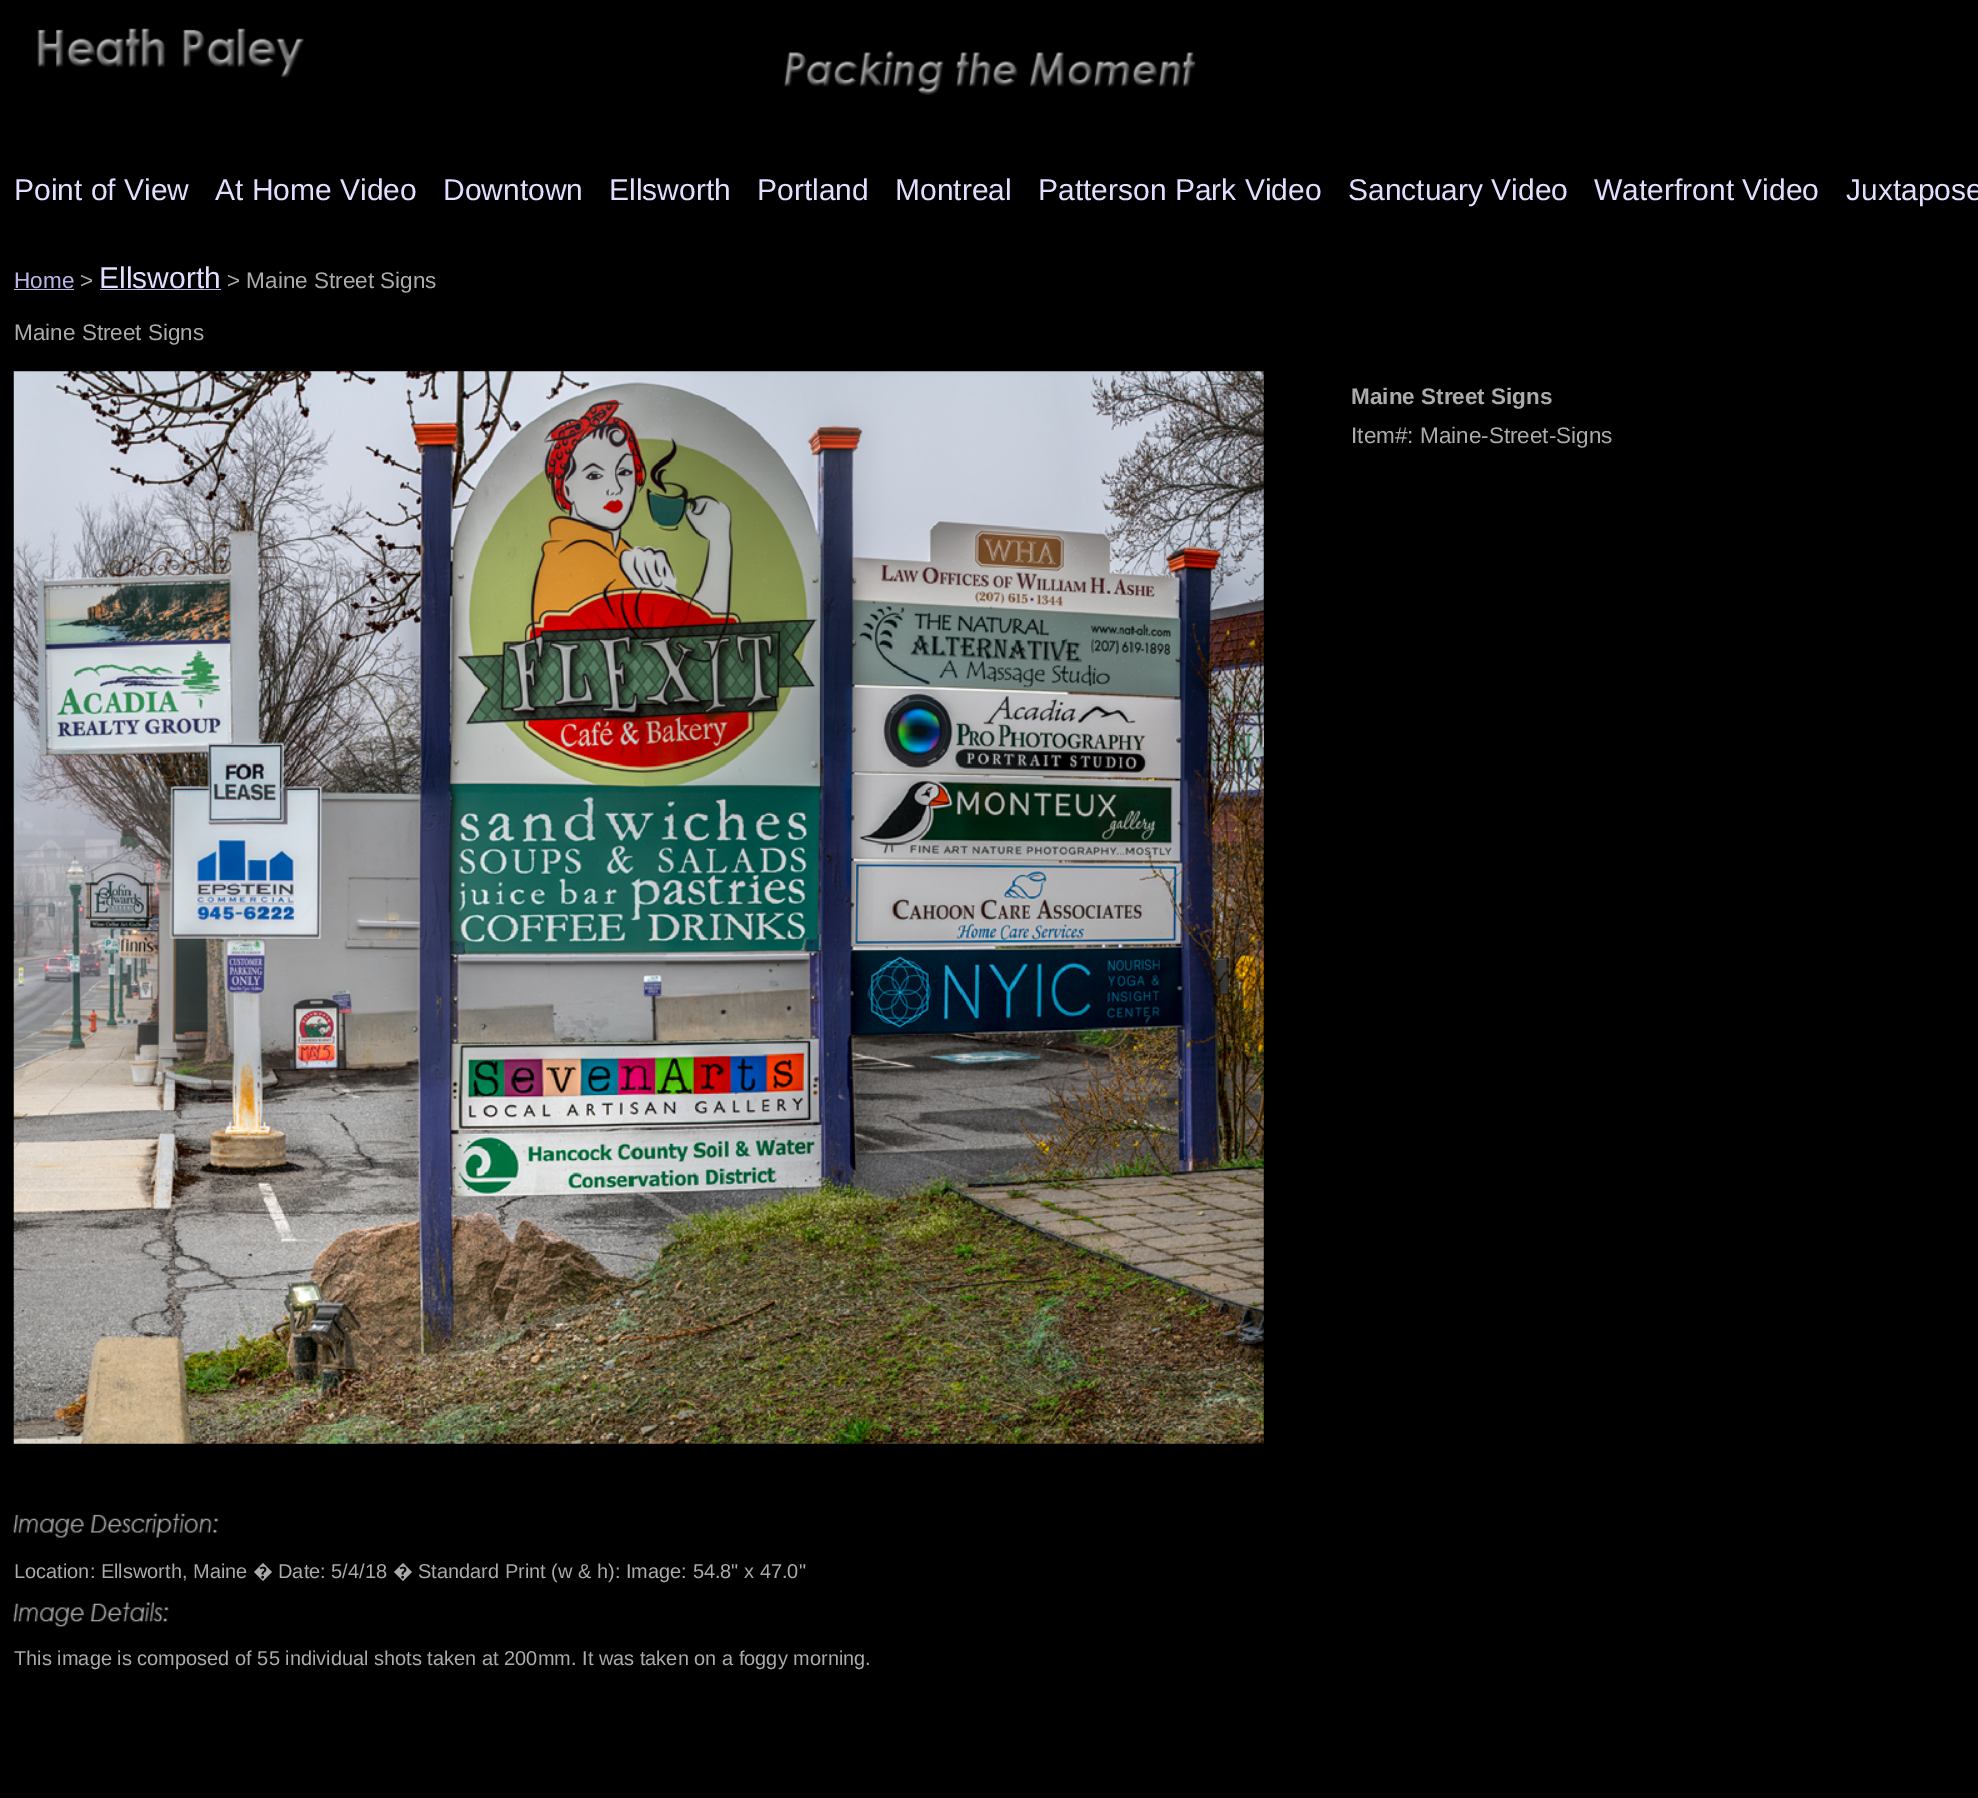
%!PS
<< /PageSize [1978 1798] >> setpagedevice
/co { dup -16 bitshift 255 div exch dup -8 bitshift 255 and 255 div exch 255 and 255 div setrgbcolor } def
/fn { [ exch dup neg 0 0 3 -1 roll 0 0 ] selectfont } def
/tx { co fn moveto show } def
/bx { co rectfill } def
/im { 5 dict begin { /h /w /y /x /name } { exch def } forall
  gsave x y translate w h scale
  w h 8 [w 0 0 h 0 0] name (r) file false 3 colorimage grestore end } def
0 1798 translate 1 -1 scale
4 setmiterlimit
0 0 1978 1798 16#000000 bx
(media/1.raw) 37 28 1159 67 im
14 289 60 1 16#B9B4E3 bx
100 289 121 1 16#B9B4E3 bx
(media/2.raw) 13 371 1251 1073 im
(media/3.raw) 13 1513 206 25 im
(media/4.raw) 13 1602 156 25 im
(Point of View) 14 200 /LiberationSans-Regular 30 16#E3DEFF tx
(At Home Video) 215 200 /LiberationSans-Regular 30 16#E3DEFF tx
(Downtown) 443 200 /LiberationSans-Regular 30 16#E3DEFF tx
(Ellsworth) 609 200 /LiberationSans-Regular 30 16#E3DEFF tx
(Portland) 757 200 /LiberationSans-Regular 30 16#E3DEFF tx
(Montreal) 895 200 /LiberationSans-Regular 30 16#E3DEFF tx
(Patterson Park Video) 1038 200 /LiberationSans-Regular 30 16#E3DEFF tx
(Sanctuary Video) 1348 200 /LiberationSans-Regular 30 16#E3DEFF tx
(Waterfront Video) 1594 200 /LiberationSans-Regular 30 16#E3DEFF tx
(Juxtapose) 1846 200 /LiberationSans-Regular 30 16#E3DEFF tx
(Home) 14 288 /LiberationSans-Regular 22.5 16#B9B4E3 tx
(>) 80 288 /LiberationSans-Regular 22.5 16#ABABAB tx
(Ellsworth) 99 288 /LiberationSans-Regular 30 16#E3DEFF tx
(> Maine Street Signs) 227 288 /LiberationSans-Regular 22.5 16#ABABAB tx
(Maine Street Signs) 14 340 /LiberationSans-Regular 22.5 16#ABABAB tx
(Maine Street Signs) 1351 404 /LiberationSans-Bold 22.5 16#ABABAB tx
(Item#: Maine-Street-Signs) 1351 443 /LiberationSans-Regular 22.5 16#ABABAB tx
(Location: Ellsworth, Maine) 14 1578 /LiberationSans-Regular 20 16#ABABAB tx
(�) 253 1578 /NotoSans-Regular 20 16#ABABAB tx
(Date: 5/4/18) 278 1578 /LiberationSans-Regular 20 16#ABABAB tx
(�) 393 1578 /NotoSans-Regular 20 16#ABABAB tx
(Standard Print \(w & h\): Image: 54.8" x 47.0") 418 1578 /LiberationSans-Regular 20 16#ABABAB tx
(This image is composed of 55 individual shots taken at 200mm. It was taken on a foggy morning.) 14 1665 /LiberationSans-Regular 20 16#ABABAB tx
showpage
